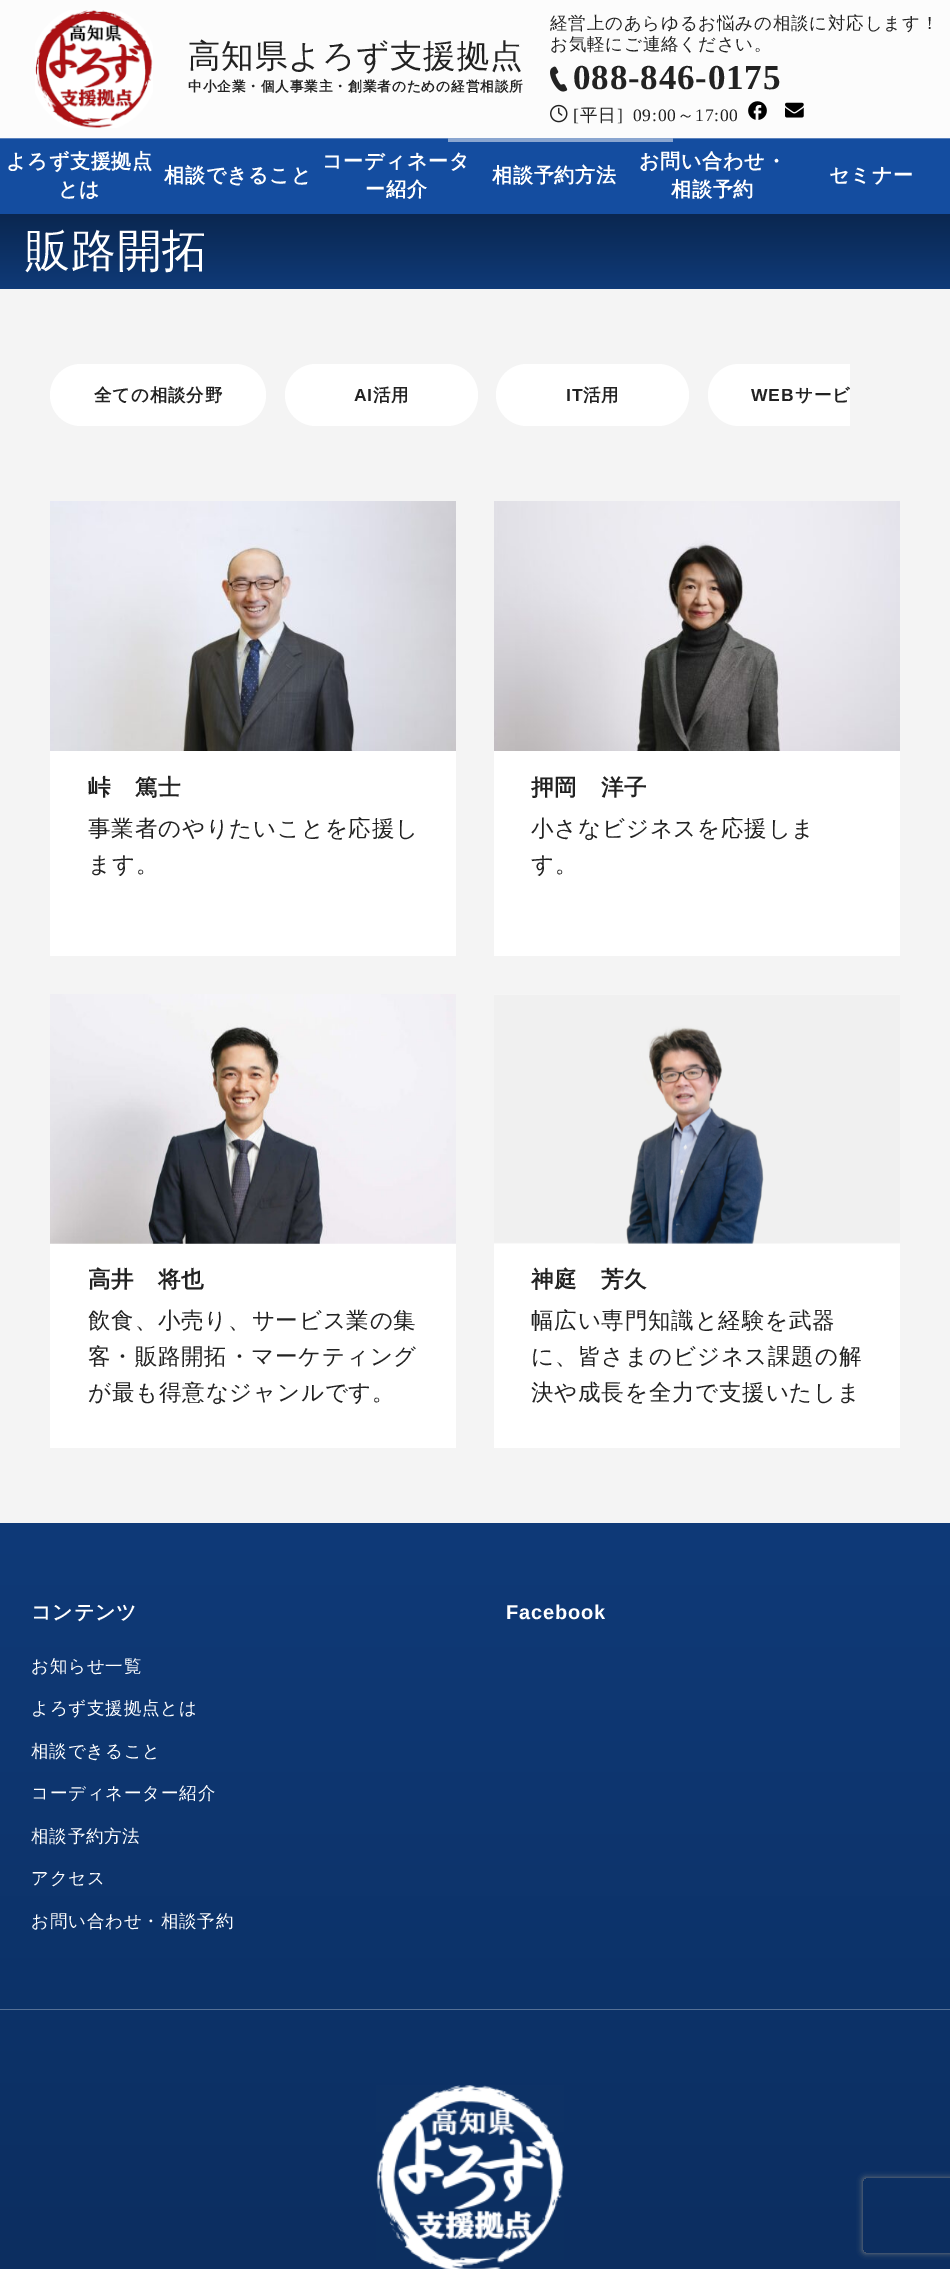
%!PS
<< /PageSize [950 2269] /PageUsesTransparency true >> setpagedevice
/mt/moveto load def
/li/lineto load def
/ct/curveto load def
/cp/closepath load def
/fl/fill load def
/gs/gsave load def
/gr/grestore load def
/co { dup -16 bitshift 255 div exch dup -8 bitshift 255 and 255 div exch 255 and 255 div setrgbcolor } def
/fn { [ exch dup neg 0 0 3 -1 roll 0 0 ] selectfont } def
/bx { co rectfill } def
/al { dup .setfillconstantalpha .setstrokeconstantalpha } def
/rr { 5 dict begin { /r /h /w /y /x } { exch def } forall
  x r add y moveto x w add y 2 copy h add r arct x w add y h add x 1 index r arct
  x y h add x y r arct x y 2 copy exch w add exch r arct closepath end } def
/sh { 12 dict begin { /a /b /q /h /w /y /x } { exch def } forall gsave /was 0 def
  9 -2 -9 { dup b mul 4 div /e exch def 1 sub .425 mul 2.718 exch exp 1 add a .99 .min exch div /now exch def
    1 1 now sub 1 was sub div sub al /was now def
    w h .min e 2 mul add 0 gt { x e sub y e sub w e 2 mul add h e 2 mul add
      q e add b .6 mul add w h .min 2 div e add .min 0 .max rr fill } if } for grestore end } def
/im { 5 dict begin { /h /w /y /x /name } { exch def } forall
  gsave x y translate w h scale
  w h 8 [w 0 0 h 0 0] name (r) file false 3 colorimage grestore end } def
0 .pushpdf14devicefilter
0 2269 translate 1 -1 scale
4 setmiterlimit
0 0 950 2269 16#F4F4F4 bx
0 139 950 75 16#144DA0 bx
0 0 950 138 16#FCFCFC bx
(media/1.raw) 35 10 118 118 im
(media/2.raw) 550 66 18 26 im
(media/3.raw) 550 104 18 19 im
(media/4.raw) 748 101 19 19 im
(media/5.raw) 785 102 19 16 im
0 138 950 1 16#5B82BD bx
448 138 225 4 16#8AA6D0 bx
gs 0 214 mt 950 214 li 950 289 li 0 289 li cp clip newpath
<< /ShadingType 2 /ColorSpace /DeviceRGB /Coords [475 214 475 289] /Extend [true true] /Function << /FunctionType 2 /Domain [0 1] /C0 [.039 .153 .314] /C1 [.059 .227 .471] /N 1 >> >> shfill gr
16#FFFFFF co
50 364 216 62 31 rr fl
285 364 193 62 31 rr fl
496 364 193 62 31 rr fl
739 364 mt 850 364 li 850 426 li 739 426 li 722 426 708 412 708 395 ct 708 378 722 364 739 364 ct cp fl
50 751 406 205 16#FFFFFF bx
(media/6.raw) 50 501 406 250 im
494 751 406 205 16#FFFFFF bx
(media/7.raw) 494 501 406 250 im
50 1243 406 205 16#FFFFFF bx
(media/8.raw) 50 994 406 250 im
494 1243 406 205 16#FFFFFF bx
(media/9.raw) 494 994 406 250 im
gs 0 1523 mt 950 1523 li 950 2269 li 0 2269 li cp clip newpath
<< /ShadingType 2 /ColorSpace /DeviceRGB /Coords [475 1523 475 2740] /Extend [true true] /Function << /FunctionType 2 /Domain [0 1] /C0 [.059 .227 .471] /C1 [.039 .153 .314] /N 1 >> >> shfill gr
0 2009 950 1 16#567095 bx
(media/10.raw) 376 2085 188 184 im
gs
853 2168 mt 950 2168 li 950 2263 li 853 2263 li cp 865.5 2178 mt 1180.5 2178 li 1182 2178 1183 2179 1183 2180.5 ct 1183 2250.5 li 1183 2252 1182 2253 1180.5 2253 ct 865.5 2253 li 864 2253 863 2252 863 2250.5 ct 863 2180.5 li 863 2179 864 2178 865.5 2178 ct cp eoclip newpath
16#808080 co
863 2178 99 75 2.5 3 1 sh
gr
/WenQuanYiZenHei-Medium 32.5 fn
16#222222 co
188 67 mt .8 0 (高知県よろず支援拠点) ashow
/WenQuanYiZenHei-Bold 13.75 fn
188 91 mt .8 0 (中小企業・個人事業主・創業者のための経営相談所) ashow
/WenQuanYiZenHei-Medium 17.5 fn
550 29 mt .8 0 (経営上のあらゆるお悩みの相談に対応します！) ashow
550 50 mt .8 0 (お気軽にご連絡ください。) ashow
/LiberationSerif-Bold 35 fn
573 89 mt .8 0 (088-846-0175) ashow
/LiberationSerif-Regular 17.5 fn
573 121 mt .8 0 ([) ashow
/WenQuanYiZenHei-Medium 17.5 fn
580 121 mt .8 0 (平日) ashow
/LiberationSerif-Regular 17.5 fn
617 121 mt 4 0 32 .8 0 (] 09:00) awidthshow
/WenQuanYiZenHei-Medium 17.5 fn
677 121 mt .8 0 (～) ashow
/LiberationSerif-Regular 17.5 fn
695 121 mt .8 0 (17:00) ashow
/WenQuanYiZenHei-Bold 20 fn
16#FFFFFF co
6 168 mt .8 0 (よろず支援拠点) ashow
58 196 mt .8 0 (とは) ashow
164 182 mt .8 0 (相談できること) ashow
322 168 mt .8 0 (コーディネータ) ashow
365 196 mt .8 0 (ー紹介) ashow
492 182 mt .8 0 (相談予約方法) ashow
639 168 mt .8 0 (お問い合わせ・) ashow
671 196 mt .8 0 (相談予約) ashow
829 182 mt .8 0 (セミナー) ashow
/WenQuanYiZenHei-Medium 45 fn
25 266 mt .8 0 (販路開拓) ashow
/WenQuanYiZenHei-Bold 17.5 fn
16#222222 co
94 401 mt .8 0 (全ての相談分野) ashow
/LiberationSans-Bold 17.5 fn
354 401 mt .8 0 (AI) ashow
/WenQuanYiZenHei-Bold 17.5 fn
373 401 mt .8 0 (活用) ashow
/LiberationSans-Bold 17.5 fn
566 401 mt .8 0 (IT) ashow
/WenQuanYiZenHei-Bold 17.5 fn
583 401 mt .8 0 (活用) ashow
/LiberationSans-Bold 17.5 fn
751 401 mt .8 0 (WEB) ashow
/WenQuanYiZenHei-Bold 17.5 fn
795 401 mt .8 0 (サービ) ashow
/WenQuanYiZenHei-Bold 22.5 fn
88 795 mt .8 0 (峠　篤士) ashow
/WenQuanYiZenHei-Medium 22.5 fn
88 836 mt .8 0 (事業者のやりたいことを応援し) ashow
88 872 mt .8 0 (ます。) ashow
/WenQuanYiZenHei-Bold 22.5 fn
531 795 mt .8 0 (押岡　洋子) ashow
/WenQuanYiZenHei-Medium 22.5 fn
531 836 mt .8 0 (小さなビジネスを応援しま) ashow
531 872 mt .8 0 (す。) ashow
/WenQuanYiZenHei-Bold 22.5 fn
88 1287 mt .8 0 (高井　将也) ashow
/WenQuanYiZenHei-Medium 22.5 fn
88 1328 mt .8 0 (飲食、小売り、サービス業の集) ashow
88 1364 mt .8 0 (客・販路開拓・マーケティング) ashow
88 1400 mt .8 0 (が最も得意なジャンルです。) ashow
/WenQuanYiZenHei-Bold 22.5 fn
531 1287 mt .8 0 (神庭　芳久) ashow
/WenQuanYiZenHei-Medium 22.5 fn
531 1328 mt .8 0 (幅広い専門知識と経験を武器) ashow
531 1364 mt .8 0 (に、皆さまのビジネス課題の解) ashow
531 1400 mt .8 0 (決や成長を全力で支援いたしま) ashow
/WenQuanYiZenHei-Bold 20 fn
16#FFFFFF co
31 1619 mt .8 0 (コンテンツ) ashow
/WenQuanYiZenHei-Medium 17.5 fn
31 1672 mt .8 0 (お知らせ一覧) ashow
31 1714 mt .8 0 (よろず支援拠点とは) ashow
31 1757 mt .8 0 (相談できること) ashow
31 1799 mt .8 0 (コーディネーター紹介) ashow
31 1842 mt .8 0 (相談予約方法) ashow
31 1884 mt .8 0 (アクセス) ashow
31 1927 mt .8 0 (お問い合わせ・相談予約) ashow
/LiberationSans-Bold 20 fn
506 1619 mt .8 0 (Facebook) ashow
.poppdf14devicefilter showpage
